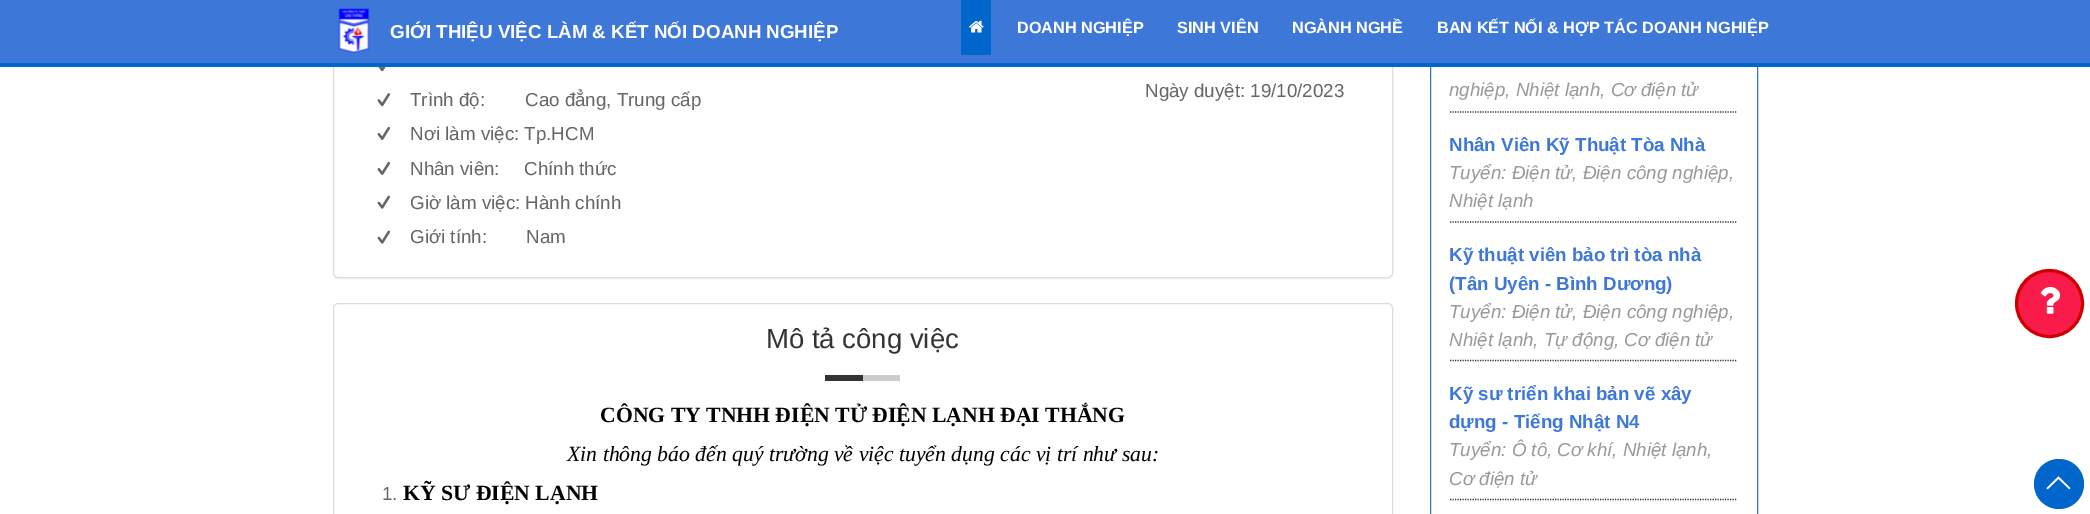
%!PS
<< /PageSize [2090 514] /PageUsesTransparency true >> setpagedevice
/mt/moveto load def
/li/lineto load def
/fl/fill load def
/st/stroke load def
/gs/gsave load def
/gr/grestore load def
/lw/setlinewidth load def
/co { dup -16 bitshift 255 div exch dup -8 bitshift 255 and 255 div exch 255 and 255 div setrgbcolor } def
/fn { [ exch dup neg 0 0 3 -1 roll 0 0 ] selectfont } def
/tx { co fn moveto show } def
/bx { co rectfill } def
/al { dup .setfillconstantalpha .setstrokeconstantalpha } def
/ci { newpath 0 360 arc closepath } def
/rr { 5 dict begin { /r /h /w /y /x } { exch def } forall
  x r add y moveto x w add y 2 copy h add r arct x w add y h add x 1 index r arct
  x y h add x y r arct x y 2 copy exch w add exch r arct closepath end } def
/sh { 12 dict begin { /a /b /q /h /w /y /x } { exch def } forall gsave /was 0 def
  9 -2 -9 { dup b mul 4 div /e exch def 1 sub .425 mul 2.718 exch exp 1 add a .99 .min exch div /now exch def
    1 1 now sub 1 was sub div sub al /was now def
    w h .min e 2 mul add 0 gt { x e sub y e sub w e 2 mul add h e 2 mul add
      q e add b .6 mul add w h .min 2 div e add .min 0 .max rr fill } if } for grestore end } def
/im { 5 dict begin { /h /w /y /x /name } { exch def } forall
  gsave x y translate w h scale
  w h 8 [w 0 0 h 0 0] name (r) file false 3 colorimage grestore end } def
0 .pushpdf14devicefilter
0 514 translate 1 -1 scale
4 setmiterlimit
0 0 2090 514 16#FFFFFF bx
16#000000 co
333 -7 1060 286 5 .5 .05 sh
16#FFFFFF co
333.5 -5.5 1059 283 4.5 rr gs fl gr
16#DDDDDD co
st
16#337AB7 co
1430.5 -.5 327 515 rectstroke
0 0 2090 63 16#3D78D8 bx
0 63 2090 4 16#0066CC bx
(media/1.raw) 338 8 32 46 im
961 0 30 55 16#0066CC bx
(media/2.raw) 969 20 15 13 im
(media/3.raw) 378 67 8 5 im
(media/4.raw) 377 93 13 14 im
(media/5.raw) 377 126 13 14 im
(media/5.raw) 377 161 13 14 im
(media/6.raw) 377 195 13 14 im
(media/6.raw) 377 230 13 14 im
16#DDDDDD co
333.5 303.5 1059 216 4.5 rr st
863 375 37 6 16#CCCCCC bx
825 375 38 6 16#333333 bx
1.2 lw
[1.25 1.25] 0 setdash
1450 112 mt 1737.5 112 li st
1450 222 mt 1737.5 222 li st
1450 360.5 mt 1737.5 360.5 li st
1450 499.5 mt 1737.5 499.5 li st
16#F91B4A co
2049.5 303.5 33 ci gs fl gr
16#CC0000 co
3 lw
[] 0 setdash
st
(media/7.raw) 2040 287 21 27 im
16#0066CC co
2059 484 25 ci fl
(media/8.raw) 2046 476 25 14 im
(GIỚI THIỆU VIỆC LÀM & KẾT NỐI DOANH NGHIỆP) 390 38 /LiberationSans-Bold 18.75 16#FFFFFF tx
(DOANH NGHIỆP) 1017 33 /LiberationSans-Bold 16.25 16#FFFFFF tx
(SINH VIÊN) 1177 33 /LiberationSans-Bold 16.25 16#FFFFFF tx
(NGÀNH NGHỀ) 1292 33 /LiberationSans-Bold 16.25 16#FFFFFF tx
(BAN KẾT NỐI & HỢP TÁC DOANH NGHIỆP) 1437 33 /LiberationSans-Bold 16.25 16#FFFFFF tx
(Trình độ:) 410 106 /LiberationSans-Regular 18.75 16#666666 tx
(Cao đẳng, Trung cấp) 525 106 /LiberationSans-Regular 18.75 16#666666 tx
(Nơi làm việc: Tp.HCM) 410 140 /LiberationSans-Regular 18.75 16#666666 tx
(Nhân viên:) 410 175 /LiberationSans-Regular 18.75 16#666666 tx
(Chính thức) 524 175 /LiberationSans-Regular 18.75 16#666666 tx
(Giờ làm việc: Hành chính) 410 209 /LiberationSans-Regular 18.75 16#666666 tx
(Giới tính:) 410 243 /LiberationSans-Regular 18.75 16#666666 tx
(Nam) 526 243 /LiberationSans-Regular 18.75 16#666666 tx
(Ngày duyệt: 19/10/2023) 1145 97 /LiberationSans-Regular 18.75 16#666666 tx
(Mô tả công việc) 766 348 /LiberationSans-Regular 27.5 16#343434 tx
(CÔNG TY TNHH ĐIỆN TỬ ĐIỆN LẠNH ĐẠI THẮNG) 600 422 /LiberationSerif-Bold 21.7 16#000000 tx
(Xin thông báo đến quý trường về việc tuyển dụng các vị trí như sau:) 567 461 /LiberationSerif-Italic 21.7 16#000000 tx
(1.) 382 500 /LiberationSans-Regular 18.75 16#666666 tx
(KỸ SƯ ĐIỆN LẠNH) 403 500 /LiberationSerif-Bold 21.7 16#000000 tx
(nghiệp, Nhiệt lạnh, Cơ điện tử) 1449 96 /LiberationSans-Italic 18.75 16#999999 tx
(Nhân Viên Kỹ Thuật Tòa Nhà) 1449 151 /LiberationSans-Bold 18.75 16#3D78D8 tx
(Tuyển: Điện tử, Điện công nghiệp,) 1449 179 /LiberationSans-Italic 18.75 16#999999 tx
(Nhiệt lạnh) 1449 207 /LiberationSans-Italic 18.75 16#999999 tx
(Kỹ thuật viên bảo trì tòa nhà) 1449 261 /LiberationSans-Bold 18.75 16#3D78D8 tx
(\(Tân Uyên - Bình Dương\)) 1449 290 /LiberationSans-Bold 18.75 16#3D78D8 tx
(Tuyển: Điện tử, Điện công nghiệp,) 1449 318 /LiberationSans-Italic 18.75 16#999999 tx
(Nhiệt lạnh, Tự động, Cơ điện tử) 1449 346 /LiberationSans-Italic 18.75 16#999999 tx
(Kỹ sư triển khai bản vẽ xây) 1449 400 /LiberationSans-Bold 18.75 16#3D78D8 tx
(dựng - Tiếng Nhật N4) 1449 428 /LiberationSans-Bold 18.75 16#3D78D8 tx
(Tuyển: Ô tô, Cơ khí, Nhiệt lạnh,) 1449 456 /LiberationSans-Italic 18.75 16#999999 tx
(Cơ điện tử) 1449 485 /LiberationSans-Italic 18.75 16#999999 tx
.poppdf14devicefilter showpage
